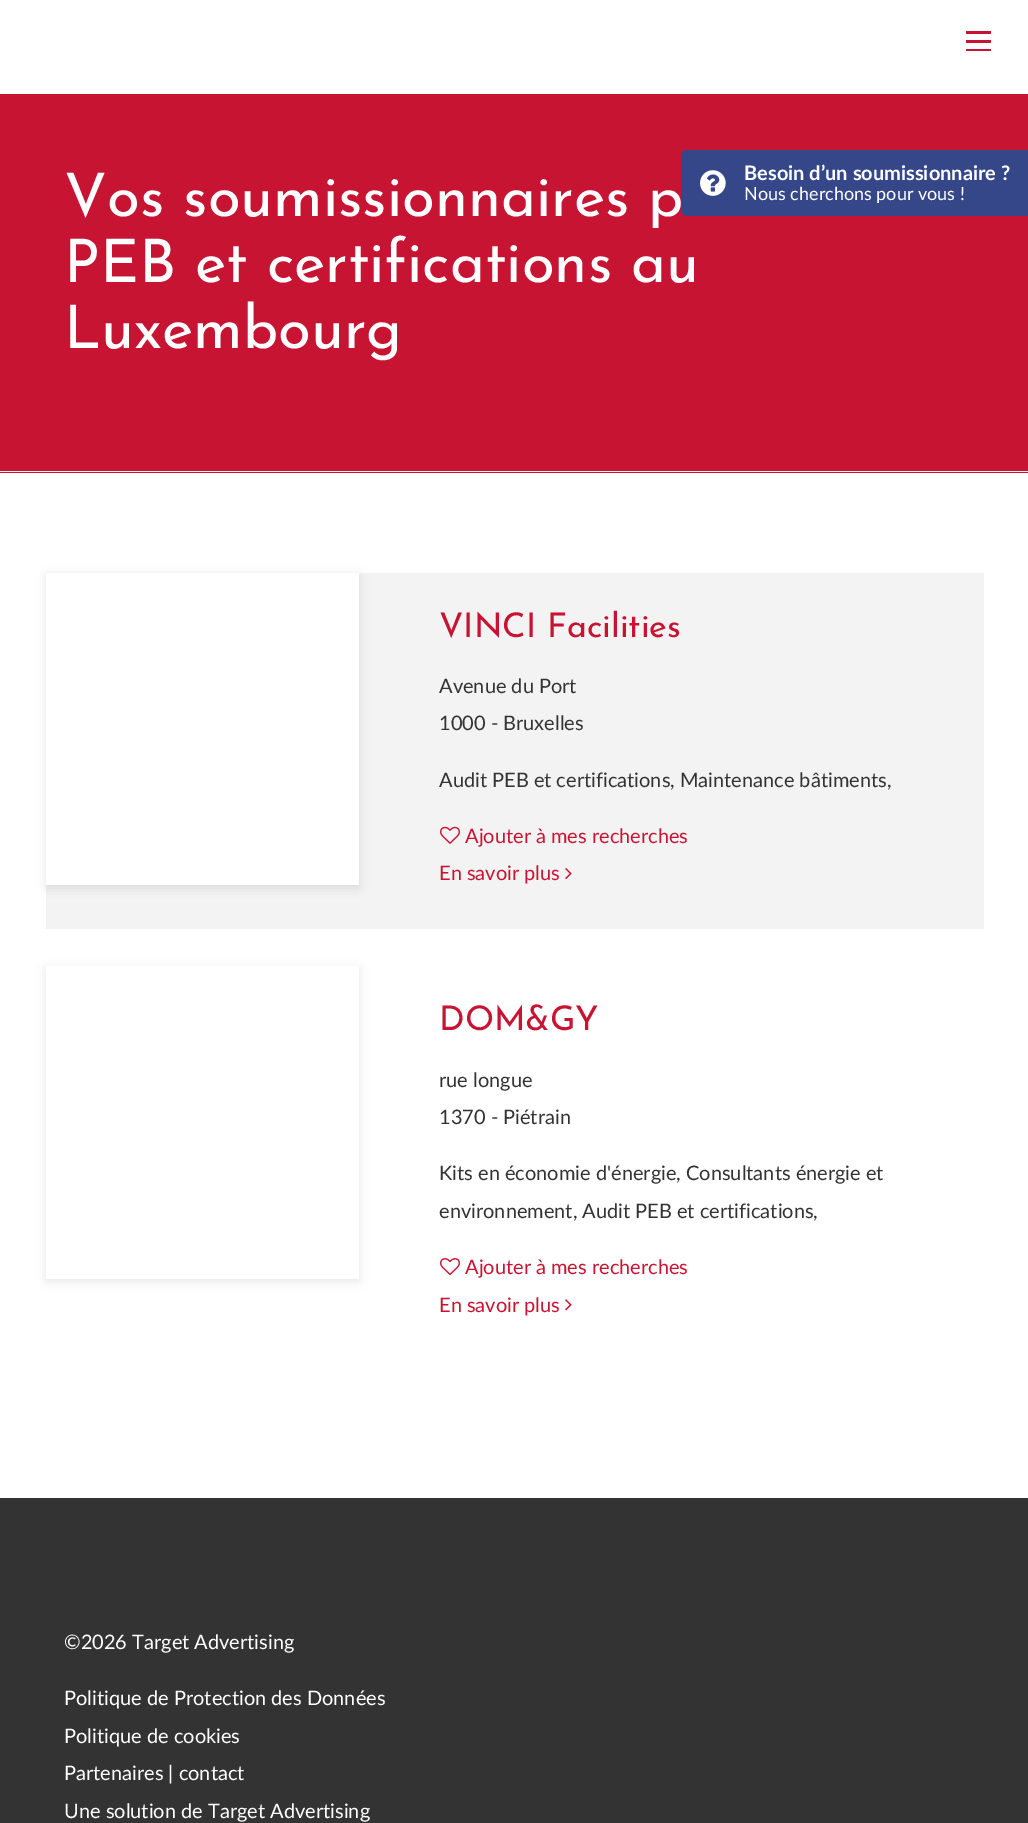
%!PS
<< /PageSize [1028 1823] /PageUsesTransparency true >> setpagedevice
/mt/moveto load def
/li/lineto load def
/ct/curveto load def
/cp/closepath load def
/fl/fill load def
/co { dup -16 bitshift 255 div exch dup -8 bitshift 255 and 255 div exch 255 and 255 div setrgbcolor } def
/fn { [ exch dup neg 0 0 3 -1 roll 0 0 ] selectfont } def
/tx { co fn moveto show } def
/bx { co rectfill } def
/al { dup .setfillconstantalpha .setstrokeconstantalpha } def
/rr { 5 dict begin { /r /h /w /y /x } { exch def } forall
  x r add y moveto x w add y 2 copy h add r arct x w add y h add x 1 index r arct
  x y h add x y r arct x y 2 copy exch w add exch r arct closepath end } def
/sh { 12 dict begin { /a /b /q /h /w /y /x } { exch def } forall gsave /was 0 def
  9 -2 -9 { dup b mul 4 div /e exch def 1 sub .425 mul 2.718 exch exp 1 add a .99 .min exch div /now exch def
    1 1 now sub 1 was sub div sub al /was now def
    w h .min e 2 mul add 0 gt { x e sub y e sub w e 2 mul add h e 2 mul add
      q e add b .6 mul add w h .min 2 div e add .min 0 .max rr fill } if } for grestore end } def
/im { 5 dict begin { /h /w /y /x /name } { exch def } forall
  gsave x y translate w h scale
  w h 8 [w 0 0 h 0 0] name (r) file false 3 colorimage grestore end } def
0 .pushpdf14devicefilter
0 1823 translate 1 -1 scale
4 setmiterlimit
0 0 1028 1823 16#C71432 bx
0 0 1028 94 16#FFFFFF bx
966 31 25 3 16#C71432 bx
966 40 25 3 16#C71432 bx
966 49 25 2 16#C71432 bx
0 471 1028 1 16#EEEEEE bx
0 473 1028 1025 16#FFFFFF bx
46 573 938 356 16#F3F3F3 bx
16#000000 co
46 575 313 313 0 5 .1 sh
46 573 313 312 16#FFFFFF bx
(media/2.raw) 440 826 20 18 im
(media/3.raw) 565 868 7 12 im
16#000000 co
46 969 313 312 0 5 .1 sh
46 966 313 313 16#FFFFFF bx
(media/4.raw) 440 1258 20 18 im
(media/5.raw) 565 1299 7 12 im
0 1498 1028 325 16#333333 bx
(Vos soumissionnaires p) 64 216 /JosefinSans-Thin 60 16#FFFFFF tx
16#354789 co
687 150 mt 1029 150 li 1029 216 li 687 216 li 683.5 216 681 213.5 681 210 ct 681 156 li 681 152.5 683.5 150 687 150 ct cp fl
(Nous cherchons pour vous !) 744 200 /Lato-Regular 18 16#FFFFFF tx
(Besoin d’un soumissionnaire ?) 744 180 /Lato-Bold 20 16#FFFFFF tx
(media/1.raw) 700 170 26 26 im
(PEB et certifications au) 64 282 /JosefinSans-Thin 60 16#FFFFFF tx
(Luxembourg) 64 348 /JosefinSans-Thin 60 16#FFFFFF tx
(VINCI Facilities) 439 637 /JosefinSans-Thin 34 16#C71432 tx
(Avenue du Port) 439 693 /Lato-Regular 20 16#333333 tx
(1000 - Bruxelles) 439 730 /Lato-Regular 20 16#333333 tx
(Audit PEB et certifications, Maintenance bâtiments,) 439 787 /Lato-Regular 20 16#333333 tx
(Ajouter à mes recherches) 465 843 /Lato-Regular 20 16#C71432 tx
(En savoir plus) 439 880 /Lato-Regular 20 16#C71432 tx
(DOM&GY) 439 1030 /JosefinSans-Thin 34 16#C71432 tx
(rue longue) 439 1087 /Lato-Regular 20 16#333333 tx
(1370 - Piétrain) 439 1124 /Lato-Regular 20 16#333333 tx
(Kits en économie d'énergie, Consultants énergie et) 439 1180 /Lato-Regular 20 16#333333 tx
(environnement, Audit PEB et certifications,) 439 1218 /Lato-Regular 20 16#333333 tx
(Ajouter à mes recherches) 465 1274 /Lato-Regular 20 16#C71432 tx
(En savoir plus) 439 1312 /Lato-Regular 20 16#C71432 tx
(©2026 Target Advertising) 64 1649 /Lato-Regular 20 16#FFFFFF tx
(Politique de Protection des Données) 64 1705 /Lato-Regular 20 16#FFFFFF tx
(Politique de cookies) 64 1743 /Lato-Regular 20 16#FFFFFF tx
(Partenaires | contact) 64 1780 /Lato-Regular 20 16#FFFFFF tx
(Une solution de Target Advertising) 64 1818 /Lato-Regular 20 16#FFFFFF tx
.poppdf14devicefilter showpage
